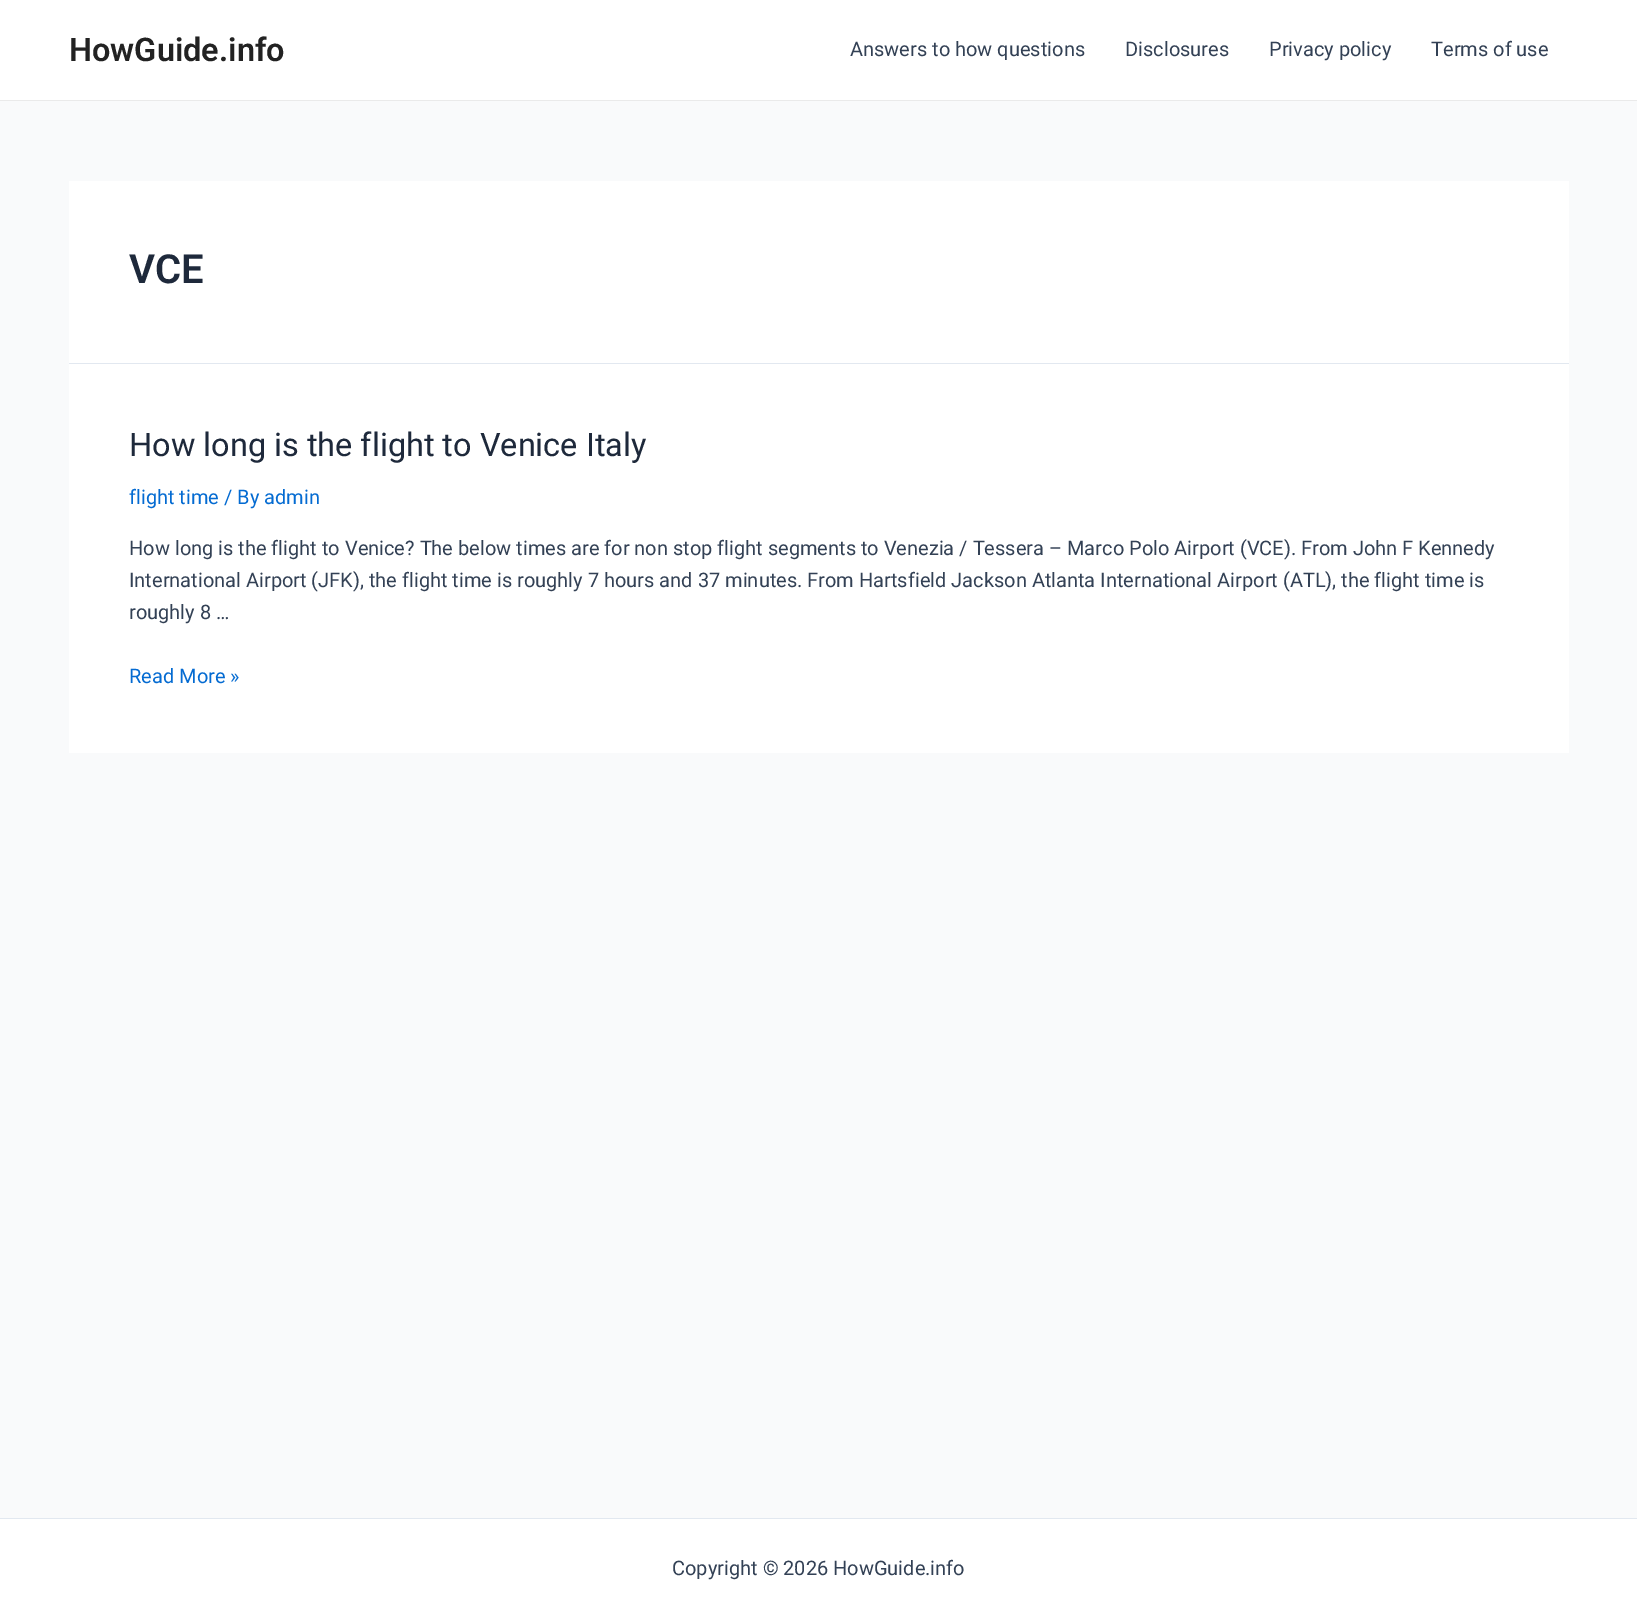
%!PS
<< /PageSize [1637 1617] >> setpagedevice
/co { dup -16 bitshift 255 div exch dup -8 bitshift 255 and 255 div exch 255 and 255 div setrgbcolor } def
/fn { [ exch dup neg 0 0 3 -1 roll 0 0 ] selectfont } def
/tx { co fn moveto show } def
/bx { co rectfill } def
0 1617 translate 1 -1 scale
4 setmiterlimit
0 0 1637 1617 16#F9FAFB bx
0 0 1637 100 16#FFFFFF bx
0 100 1637 1 16#EAEAEA bx
69 181 1500 182 16#FFFFFF bx
69 363 1500 1 16#E2E8F0 bx
69 364 1500 389 16#FFFFFF bx
0 1519 1637 98 16#FFFFFF bx
0 1518 1637 1 16#E2E8F0 bx
(HowGuide.info) 69 61 /Roboto-SemiBold 32.5 16#222222 tx
(Answers to how questions) 850 56 /Roboto-Regular 20 16#334155 tx
(Disclosures) 1125 56 /Roboto-Regular 20 16#334155 tx
(Privacy policy) 1269 56 /Roboto-Regular 20 16#334155 tx
(Terms of use) 1431 56 /Roboto-Regular 20 16#334155 tx
(VCE) 129 283 /Roboto-SemiBold 40 16#1E293B tx
(How long is the flight to Venice Italy) 129 456 /Roboto-Regular 32.5 16#1E293B tx
(flight time / By admin) 129 504 /Roboto-Regular 20 16#046BD2 tx
(How long is the flight to Venice? The below times are for non stop flight segments to Venezia / Tessera – Marco Polo Airport \(VCE\). From John F Kennedy) 129 555 /Roboto-Regular 20 16#334155 tx
(International Airport \(JFK\), the flight time is roughly 7 hours and 37 minutes. From Hartsfield Jackson Atlanta International Airport \(ATL\), the flight time is) 129 587 /Roboto-Regular 20 16#334155 tx
(roughly 8 …) 129 619 /Roboto-Regular 20 16#334155 tx
(Read More ») 129 683 /Roboto-Regular 20 16#046BD2 tx
(Copyright © 2026 HowGuide.info) 672 1575 /Roboto-Regular 20 16#334155 tx
showpage
